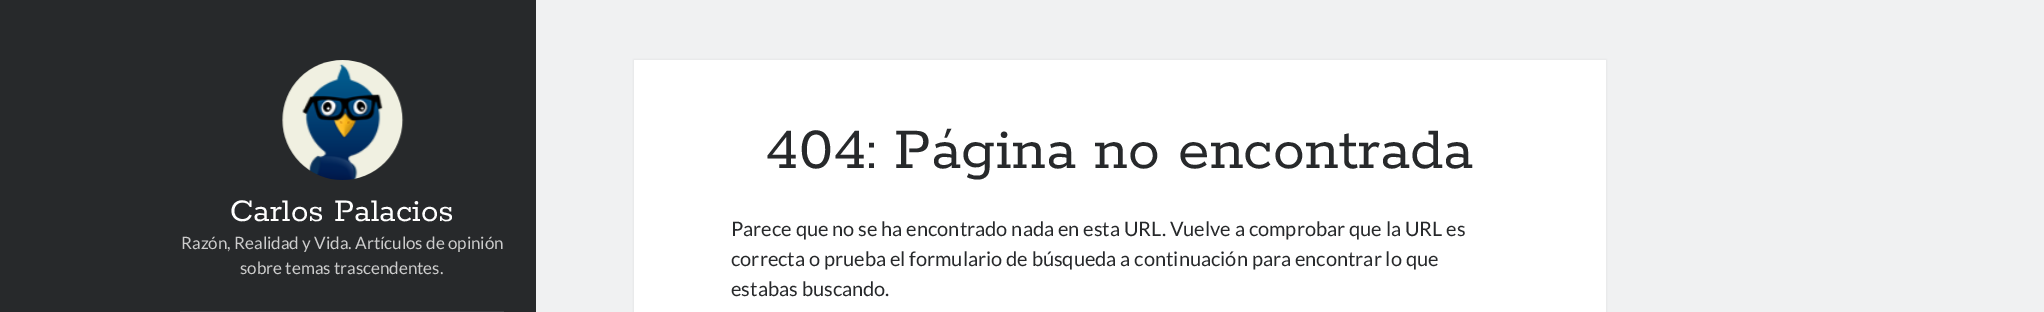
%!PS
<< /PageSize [2044 312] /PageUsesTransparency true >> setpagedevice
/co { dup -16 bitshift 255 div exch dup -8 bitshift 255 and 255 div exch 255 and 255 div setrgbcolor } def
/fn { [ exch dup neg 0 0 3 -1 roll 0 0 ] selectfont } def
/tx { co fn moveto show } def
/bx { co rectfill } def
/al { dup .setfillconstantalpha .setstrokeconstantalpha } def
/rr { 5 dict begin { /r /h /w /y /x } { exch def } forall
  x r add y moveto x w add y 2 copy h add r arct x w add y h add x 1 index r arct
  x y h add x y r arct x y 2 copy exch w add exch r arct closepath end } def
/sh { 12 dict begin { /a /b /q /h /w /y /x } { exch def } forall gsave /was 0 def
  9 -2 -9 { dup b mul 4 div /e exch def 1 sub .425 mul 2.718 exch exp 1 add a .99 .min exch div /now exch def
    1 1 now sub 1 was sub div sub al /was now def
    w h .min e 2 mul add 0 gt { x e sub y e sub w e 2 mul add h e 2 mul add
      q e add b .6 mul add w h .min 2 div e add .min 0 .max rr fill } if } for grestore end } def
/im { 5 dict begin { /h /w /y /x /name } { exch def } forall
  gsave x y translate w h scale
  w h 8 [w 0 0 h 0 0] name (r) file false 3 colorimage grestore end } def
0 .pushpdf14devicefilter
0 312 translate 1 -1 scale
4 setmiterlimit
0 0 2044 312 16#27292B bx
536 0 1508 312 16#F0F1F2 bx
(media/1.raw) 282 60 122 120 im
180 311 324 1 16#3E4145 bx
16#272B2F co
634 60 972 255 0 1 .1 sh
634 60 972 252 16#FFFFFF bx
(Carlos Palacios) 230 221 /Rokkitt-Regular 35 16#FFFFFF tx
(Razón, Realidad y Vida. Artículos de opinión) 181 249 /Lato-Regular 17 16#CCCCCC tx
(sobre temas trascendentes.) 240 274 /Lato-Regular 17 16#CCCCCC tx
(404: Página no encontrada) 765 168 /Rokkitt-Regular 63.75 16#27292B tx
(Parece que no se ha encontrado nada en esta URL. Vuelve a comprobar que la URL es) 731 236 /Lato-Regular 20 16#27292B tx
(correcta o prueba el formulario de búsqueda a continuación para encontrar lo que) 731 266 /Lato-Regular 20 16#27292B tx
(estabas buscando.) 731 296 /Lato-Regular 20 16#27292B tx
.poppdf14devicefilter showpage
